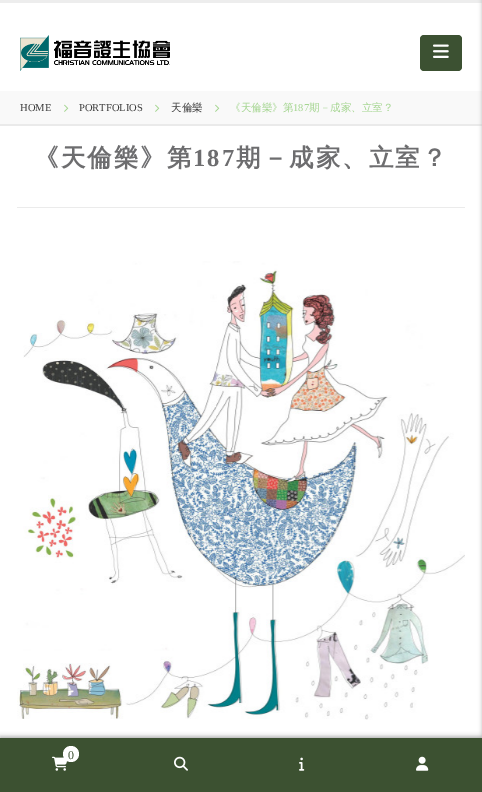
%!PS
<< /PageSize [482 792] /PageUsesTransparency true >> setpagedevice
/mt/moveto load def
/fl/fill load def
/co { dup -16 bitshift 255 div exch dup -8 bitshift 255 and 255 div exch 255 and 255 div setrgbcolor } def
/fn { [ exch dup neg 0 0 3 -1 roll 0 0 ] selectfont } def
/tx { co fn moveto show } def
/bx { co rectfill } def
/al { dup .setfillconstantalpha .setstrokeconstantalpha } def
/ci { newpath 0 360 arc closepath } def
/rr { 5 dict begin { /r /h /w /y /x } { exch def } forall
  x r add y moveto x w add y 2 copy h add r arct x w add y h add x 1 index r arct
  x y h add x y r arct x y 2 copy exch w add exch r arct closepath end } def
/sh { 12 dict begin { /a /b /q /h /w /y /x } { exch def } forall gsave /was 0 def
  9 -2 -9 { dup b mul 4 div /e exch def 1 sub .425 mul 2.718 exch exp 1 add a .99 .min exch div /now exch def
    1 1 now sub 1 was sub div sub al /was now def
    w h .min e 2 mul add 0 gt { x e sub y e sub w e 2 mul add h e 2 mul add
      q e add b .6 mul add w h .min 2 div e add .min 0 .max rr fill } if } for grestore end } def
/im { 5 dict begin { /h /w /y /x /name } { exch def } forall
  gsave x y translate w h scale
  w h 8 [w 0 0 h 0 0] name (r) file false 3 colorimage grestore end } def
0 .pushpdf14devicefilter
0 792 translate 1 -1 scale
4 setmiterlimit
0 0 482 792 16#FFFFFF bx
0 0 482 3 16#EDEDED bx
(media/1.raw) 20 35 150 36 im
16#3C5132 co
420 35 42 36 4 rr fl
(media/2.raw) 433 44 16 14 im
0 91 482 33 16#F9F9F9 bx
0 124 482 2 16#EAEAEA bx
(media/3.raw) 64 104 5 8 im
(media/3.raw) 155 104 5 8 im
(media/3.raw) 215 104 5 8 im
17 207 448 1 16#EBEBEB bx
(media/4.raw) 17 261 448 459 im
16#BBBBBB co
482 0 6 742 0 2 1 sh
16#9E9E9E co
0 737 482 54 0 2.5 1 sh
0 738 482 54 16#3C5131 bx
(media/5.raw) 299 757 6 14 im
(media/6.raw) 416 756 13 15 im
(media/7.raw) 52 756 16 15 im
16#FFFFFF co
71 754 8 ci fl
(media/8.raw) 174 756 14 15 im
(HOME) 20 111 /LiberationSerif-Regular 10.5 16#3E3E3E tx
(PORTFOLIOS) 79 111 /LiberationSerif-Regular 10.5 16#3E3E3E tx
(天倫樂) 171 111 /WenQuanYiZenHei-Medium 10.5 16#3E3E3E tx
(《天倫樂》第) 230 111 /WenQuanYiZenHei-Medium 10.5 16#A4D590 tx
(187) 293 111 /LiberationSerif-Regular 10.5 16#A4D590 tx
(期－成家、立室？) 309 111 /WenQuanYiZenHei-Medium 10.5 16#A4D590 tx
/WenQuanYiZenHei-Bold 24.5 fn
16#6D6D6F co
34 166 mt 2 0 (《天倫樂》第) ashow
/LiberationSerif-Bold 24.5 fn
193 166 mt 2 0 (187) ashow
/WenQuanYiZenHei-Bold 24.5 fn
236 166 mt 2 0 (期－成家、立室？) ashow
(0) 68 759 /LiberationSerif-Regular 12 16#3C5131 tx
.poppdf14devicefilter showpage
